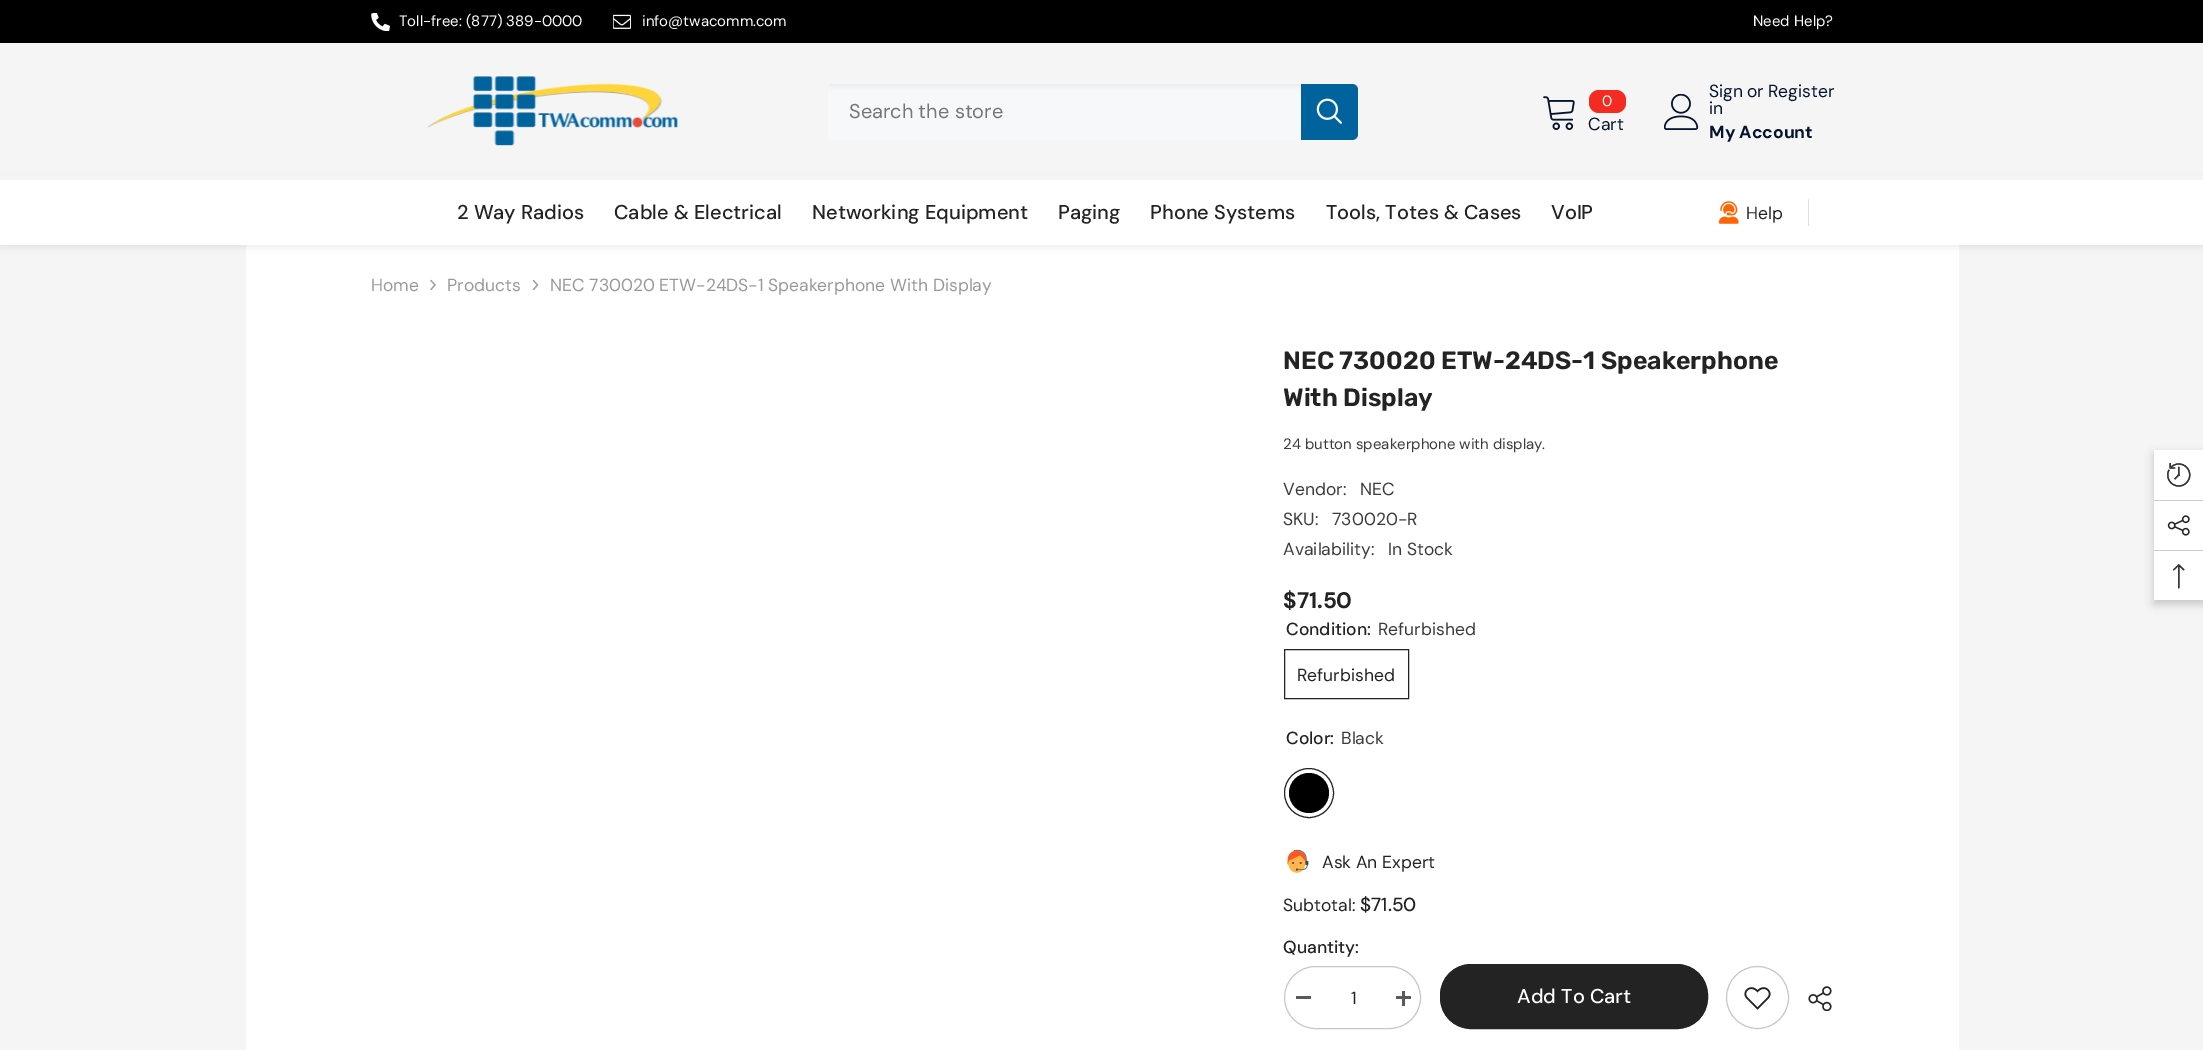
%!PS
<< /PageSize [2203 1050] /PageUsesTransparency true >> setpagedevice
/mt/moveto load def
/li/lineto load def
/ct/curveto load def
/cp/closepath load def
/fl/fill load def
/st/stroke load def
/gs/gsave load def
/gr/grestore load def
/co { dup -16 bitshift 255 div exch dup -8 bitshift 255 and 255 div exch 255 and 255 div setrgbcolor } def
/fn { [ exch dup neg 0 0 3 -1 roll 0 0 ] selectfont } def
/tx { co fn moveto show } def
/bx { co rectfill } def
/al { dup .setfillconstantalpha .setstrokeconstantalpha } def
/ci { newpath 0 360 arc closepath } def
/rr { 5 dict begin { /r /h /w /y /x } { exch def } forall
  x r add y moveto x w add y 2 copy h add r arct x w add y h add x 1 index r arct
  x y h add x y r arct x y 2 copy exch w add exch r arct closepath end } def
/sh { 12 dict begin { /a /b /q /h /w /y /x } { exch def } forall gsave /was 0 def
  9 -2 -9 { dup b mul 4 div /e exch def 1 sub .425 mul 2.718 exch exp 1 add a .99 .min exch div /now exch def
    1 1 now sub 1 was sub div sub al /was now def
    w h .min e 2 mul add 0 gt { x e sub y e sub w e 2 mul add h e 2 mul add
      q e add b .6 mul add w h .min 2 div e add .min 0 .max rr fill } if } for grestore end } def
/im { 5 dict begin { /h /w /y /x /name } { exch def } forall
  gsave x y translate w h scale
  w h 8 [w 0 0 h 0 0] name (r) file false 3 colorimage grestore end } def
0 .pushpdf14devicefilter
0 1050 translate 1 -1 scale
4 setmiterlimit
0 0 2203 1050 16#F5F5F5 bx
0 0 2203 43 16#000000 bx
(media/1.raw) 371 13 19 18 im
(media/2.raw) 613 14 18 15 im
246 245 1713 805 16#FFFFFF bx
16#000000 co
0 181 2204 65 0 4 .1 sh
0 176 2203 4 16#F5F5F5 bx
(media/3.raw) 427 76 251 70 im
gs 828 84 530 56 6 rr clip newpath
<< /ShadingType 2 /ColorSpace /DeviceRGB /Coords [1093 84 1093 140] /Extend [true true] /Function << /FunctionType 3 /Domain [0 1] /Functions [<< /FunctionType 2 /Domain [0 1] /C0 [.914 .922 .933] /C1 [.969 .973 .98] /N 1 >> << /FunctionType 2 /Domain [0 1] /C0 [.969 .973 .98] /C1 [.969 .973 .98] /N 1 >>] /Bounds [.1] /Encode [0 1 0 1] >> >> shfill gr
16#00639D co
1301 84 mt 1352 84 li 1355.5 84 1358 86.5 1358 90 ct 1358 134 li 1358 137.5 1355.5 140 1352 140 ct 1301 140 li cp fl
(media/4.raw) 1316 98 26 26 im
(media/5.raw) 1543 96 32 34 im
16#F42B23 co
1589 90 37 23 10 rr fl
(media/6.raw) 1664 94 35 36 im
0 180 2203 65 16#FFFFFF bx
(media/7.raw) 1718 201 21 23 im
1808 199 1 27 16#DEDEDE bx
(media/8.raw) 430 279 6 12 im
(media/9.raw) 532 279 7 12 im
16#232323 co
1284.5 649.5 124 49 rectstroke
1309 793 24.5 ci st
16#000000 co
1309 793 20 ci fl
(media/10.raw) 1287 849 22 24 im
16#C7C7C7 co
1284.5 966.5 136 62 31 rr st
1296 996 15 3 16#5A5A5A bx
1396 996 15 3 16#5A5A5A bx
1402 991 3 15 16#5A5A5A bx
16#232323 co
1440.5 964.5 267 64 30.5 rr gs fl gr
st
16#C7C7C7 co
1757.5 997.5 31 ci st
(media/11.raw) 1744 987 27 23 im
(media/12.raw) 1808 986 24 25 im
16#000000 co
2154 454 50 150 0 4.5 .2 sh
2154 450 49 150 16#FFFFFF bx
(media/13.raw) 2167 463 24 24 im
2154 500 49 1 16#CCCCCC bx
(media/14.raw) 2167 515 23 21 im
2154 550 49 1 16#CCCCCC bx
(media/15.raw) 2173 564 12 25 im
(Toll-free: \(877\) 389-0000) 399 26 /DMSans-Regular 15 16#FFFFFF tx
(info@twacomm.com) 642 26 /DMSans-Regular 15 16#FFFFFF tx
(Need Help?) 1753 26 /DMSans-Regular 15 16#FFFFFF tx
(Search the store) 849 118 /DMSans-Regular 20 16#767676 tx
(0) 1602 106 /DMSans-Regular 15 16#FFFFFF tx
(Cart) 1588 130 /DMSans-Regular 17.5 16#06142E tx
(Sign) 1709 97 /DMSans-Regular 17.5 16#06142E tx
(in) 1709 114 /DMSans-Regular 17.5 16#06142E tx
(or) 1747 97 /DMSans-Regular 17.5 16#06142E tx
(Register) 1768 97 /DMSans-Regular 17.5 16#06142E tx
(My Account) 1709 138 /DMSans-Bold 17.5 16#06142E tx
(2 Way Radios) 457 219 /DMSans-Medium 20 16#232323 tx
(Cable & Electrical) 614 219 /DMSans-Medium 20 16#232323 tx
(Networking Equipment) 812 219 /DMSans-Medium 20 16#232323 tx
(Paging) 1058 219 /DMSans-Medium 20 16#232323 tx
(Phone Systems) 1150 219 /DMSans-Medium 20 16#232323 tx
(Tools, Totes & Cases) 1326 219 /DMSans-Medium 20 16#232323 tx
(VoIP) 1551 219 /DMSans-Medium 20 16#232323 tx
(Help) 1746 219 /DMSans-Regular 17.5 16#232323 tx
(Home) 371 291 /DMSans-Regular 17.5 16#999999 tx
(Products) 447 291 /DMSans-Regular 17.5 16#999999 tx
(NEC 730020 ETW-24DS-1 Speakerphone With Display) 550 291 /DMSans-Regular 17.5 16#999999 tx
(NEC 730020 ETW-24DS-1 Speakerphone) 1283 369 /Rubik-SemiBold 25 16#232323 tx
(With Display) 1283 406 /Rubik-SemiBold 25 16#232323 tx
(24 button speakerphone with display.) 1283 449 /DMSans-Regular 15 16#3C3C3C tx
(Vendor:) 1283 495 /DMSans-Regular 17.5 16#3C3C3C tx
(NEC) 1360 495 /DMSans-Regular 17.5 16#3C3C3C tx
(SKU:) 1283 525 /DMSans-Regular 17.5 16#3C3C3C tx
(730020-R) 1332 525 /DMSans-Regular 17.5 16#3C3C3C tx
(Availability:) 1283 555 /DMSans-Regular 17.5 16#3C3C3C tx
(In Stock) 1388 555 /DMSans-Regular 17.5 16#3C3C3C tx
($71.50) 1283 608 /DMSans-Bold 22.5 16#232323 tx
(Condition:) 1286 635 /DMSans-Medium 17.5 16#232323 tx
(Refurbished) 1378 635 /DMSans-Regular 17.5 16#3C3C3C tx
(Refurbished) 1297 681 /DMSans-Regular 17.5 16#232323 tx
(Color:) 1286 744 /DMSans-Medium 17.5 16#232323 tx
(Black) 1341 744 /DMSans-Regular 17.5 16#3C3C3C tx
(Ask An Expert) 1322 868 /DMSans-Regular 17.5 16#232323 tx
(Subtotal:) 1283 911 /DMSans-Regular 17.5 16#232323 tx
($71.50) 1360 911 /DMSans-Medium 19 16#232323 tx
(Quantity:) 1283 953 /DMSans-Medium 17.5 16#232323 tx
(1) 1351 1004 /DMSans-Regular 17.5 16#232323 tx
(Add To Cart) 1517 1003 /DMSans-Medium 20 16#FFFFFF tx
.poppdf14devicefilter showpage
